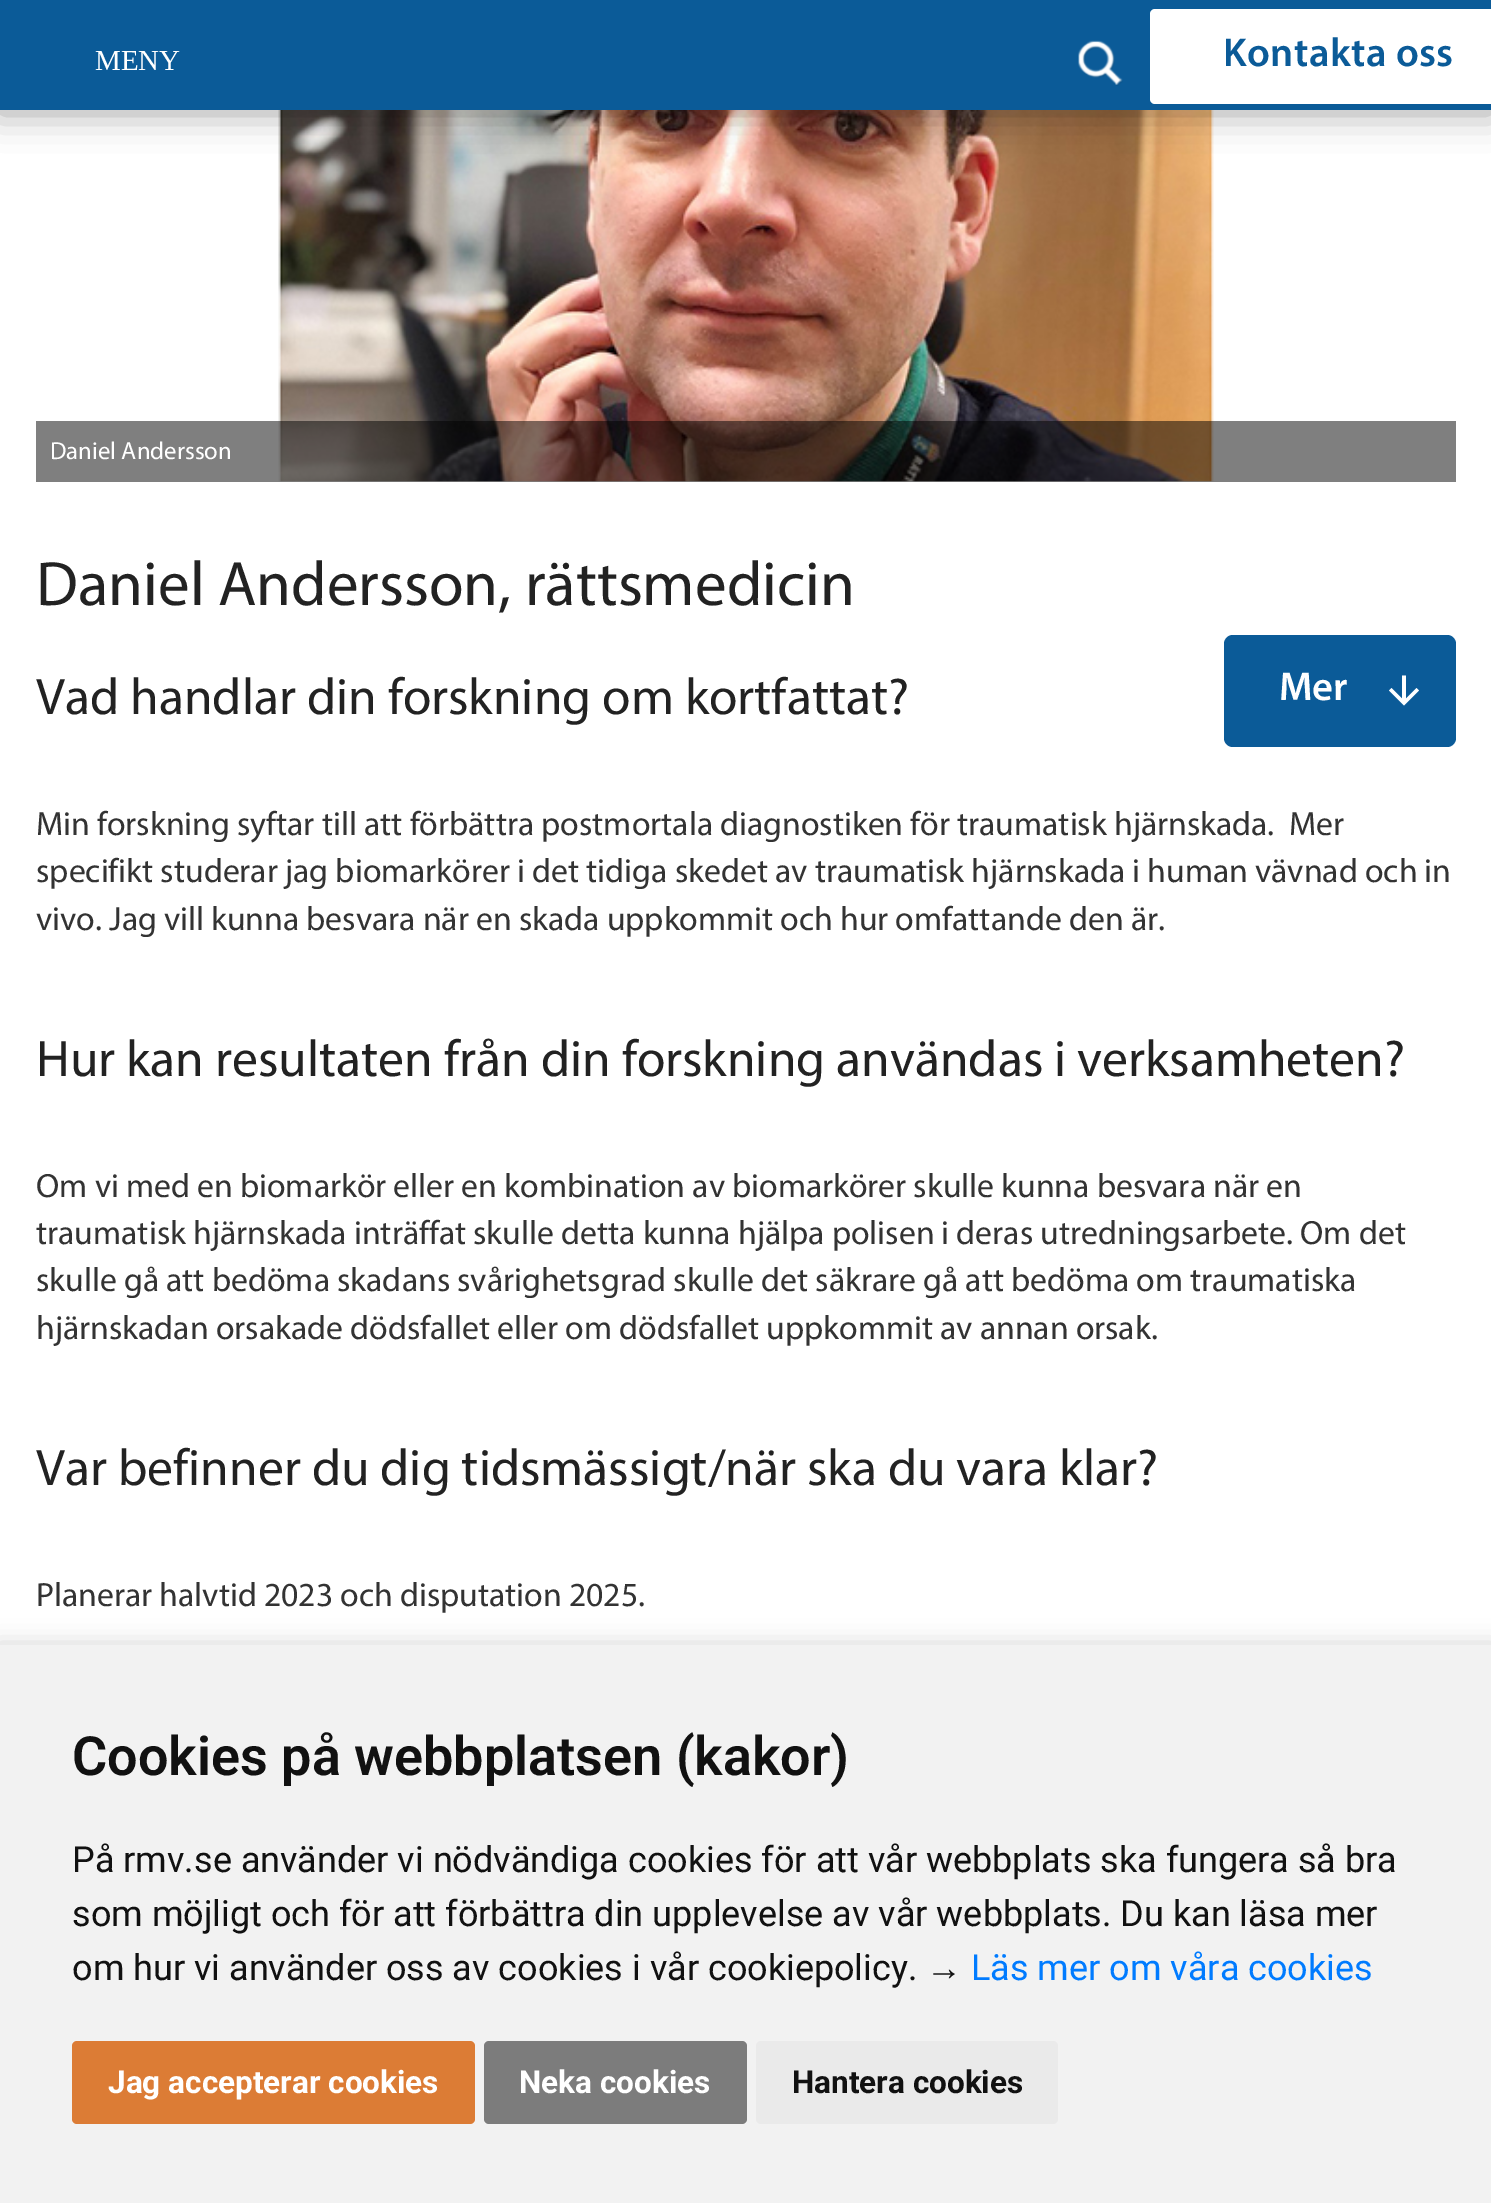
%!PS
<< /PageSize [1491 2203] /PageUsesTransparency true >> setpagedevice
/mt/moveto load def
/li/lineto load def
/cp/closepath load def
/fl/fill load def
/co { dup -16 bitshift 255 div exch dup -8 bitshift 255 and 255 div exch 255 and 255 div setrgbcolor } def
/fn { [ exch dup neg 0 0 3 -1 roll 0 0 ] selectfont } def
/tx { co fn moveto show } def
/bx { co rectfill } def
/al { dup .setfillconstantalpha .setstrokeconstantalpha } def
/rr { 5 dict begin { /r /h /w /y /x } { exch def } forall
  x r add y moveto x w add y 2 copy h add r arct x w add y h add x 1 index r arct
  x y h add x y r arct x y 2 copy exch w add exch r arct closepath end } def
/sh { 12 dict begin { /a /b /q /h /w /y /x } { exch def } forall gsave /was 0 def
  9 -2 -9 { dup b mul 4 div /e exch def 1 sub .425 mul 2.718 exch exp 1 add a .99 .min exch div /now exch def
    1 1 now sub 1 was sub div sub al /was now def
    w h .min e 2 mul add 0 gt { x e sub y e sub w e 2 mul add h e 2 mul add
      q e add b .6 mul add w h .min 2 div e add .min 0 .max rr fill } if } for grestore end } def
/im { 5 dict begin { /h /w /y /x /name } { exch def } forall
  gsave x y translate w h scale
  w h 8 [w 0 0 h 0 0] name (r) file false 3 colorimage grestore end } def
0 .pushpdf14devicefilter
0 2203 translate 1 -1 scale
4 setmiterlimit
0 0 1491 2203 16#FFFFFF bx
(media/2.raw) 278 110 936 372 im
16#000000 co
-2 -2 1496 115 0 18 .35 sh
0 0 1491 110 16#0B5B98 bx
(media/1.raw) 1078 40 45 46 im
16#FFFFFF co
1150 9 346 95 5 rr fl
0.5 al
36 421 1420 61 16#000000 bx
1 al
16#0B5B98 co
1224 635 232 112 9 rr fl
16#FFFFFF co
1402 675.5 mt 1402 698.5 li 1391.5 688 li 1389 690.5 li 1404 705.5 li 1419 690.5 li 1416.5 688 li 1406 698.5 li 1406 675.5 li cp fl
16#000000 co
-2 1643 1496 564 0 11 .15 sh
0 1645 1491 558 16#F2F2F2 bx
16#DC7C35 co
72 2041 403 83 5 rr fl
16#7C7C7C co
484 2041 263 83 5 rr fl
16#EAEAEA co
756 2041 302 83 5 rr fl
(MENY) 95 70 /LiberationSerif-Regular 29 16#FFFFFF tx
/Myriad-SemiBold 40.5 fn
16#0B5B98 co
1223 66 mt .5 0 (Kontakta oss) ashow
(Daniel Andersson) 50 459 /Myriad-Regular 24.75 16#FFFFFF tx
(Daniel Andersson, rättsmedicin) 36 605 /Myriad-Regular 63 16#222222 tx
(Vad handlar din forskning om kortfattat?) 36 714 /Myriad-Regular 51.75 16#222222 tx
(Mer) 1279 700 /Myriad-SemiBold 40.5 16#FFFFFF tx
(Min forskning syftar till att förbättra postmortala diagnostiken för traumatisk hjärnskada.  Mer) 36 835 /Myriad-Regular 33.75 16#333333 tx
(specifikt studerar jag biomarkörer i det tidiga skedet av traumatisk hjärnskada i human vävnad och in) 36 882 /Myriad-Regular 33.75 16#333333 tx
(vivo. Jag vill kunna besvara när en skada uppkommit och hur omfattande den är.) 36 930 /Myriad-Regular 33.75 16#333333 tx
(Hur kan resultaten från din forskning användas i verksamheten?) 36 1076 /Myriad-Regular 51.75 16#222222 tx
(Om vi med en biomarkör eller en kombination av biomarkörer skulle kunna besvara när en) 36 1197 /Myriad-Regular 33.75 16#333333 tx
(traumatisk hjärnskada inträffat skulle detta kunna hjälpa polisen i deras utredningsarbete. Om det) 36 1244 /Myriad-Regular 33.75 16#333333 tx
(skulle gå att bedöma skadans svårighetsgrad skulle det säkrare gå att bedöma om traumatiska) 36 1291 /Myriad-Regular 33.75 16#333333 tx
(hjärnskadan orsakade dödsfallet eller om dödsfallet uppkommit av annan orsak.) 36 1339 /Myriad-Regular 33.75 16#333333 tx
(Var befinner du dig tidsmässigt/när ska du vara klar?) 36 1485 /Myriad-Regular 51.75 16#222222 tx
(Planerar halvtid 2023 och disputation 2025.) 36 1606 /Myriad-Regular 33.75 16#333333 tx
(Cookies på webbplatsen \(kakor\)) 72 1775 /Roboto-SemiBold 54 16#111111 tx
(På rmv.se använder vi nödvändiga cookies för att vår webbplats ska fungera så bra) 72 1872 /Roboto-Regular 36 16#111111 tx
(som möjligt och för att förbättra din upplevelse av vår webbplats. Du kan läsa mer) 72 1926 /Roboto-Regular 36 16#111111 tx
(om hur vi använder oss av cookies i vår cookiepolicy.) 72 1980 /Roboto-Regular 36 16#111111 tx
(→) 926 1980 /LiberationSans-Regular 36 16#111111 tx
(Läs mer om våra cookies) 971 1980 /Roboto-Regular 36 16#007BFF tx
(Jag accepterar cookies) 108 2093 /Roboto-Bold 31.5 16#FFFFFF tx
(Neka cookies) 519 2093 /Roboto-Bold 31.5 16#FFFFFF tx
(Hantera cookies) 792 2093 /Roboto-Bold 31.5 16#111111 tx
.poppdf14devicefilter showpage
